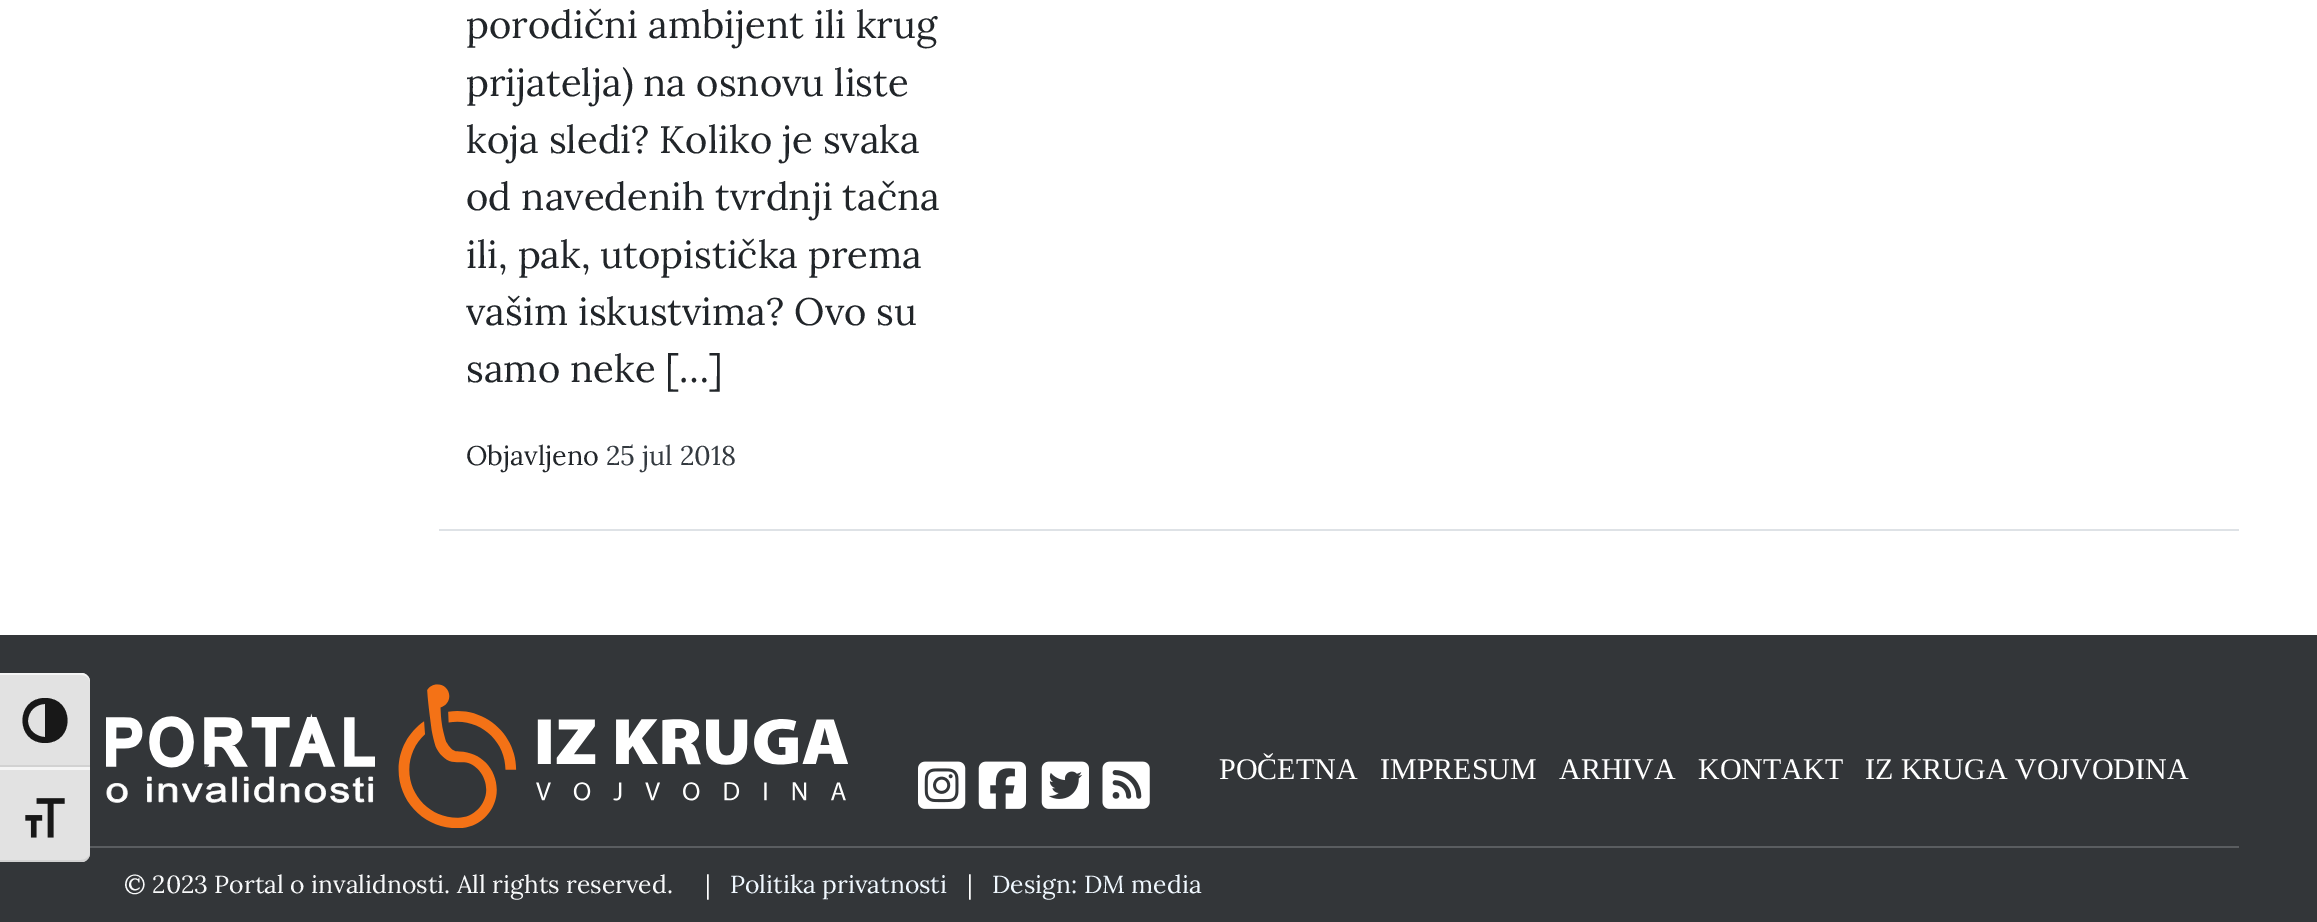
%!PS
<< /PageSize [2317 922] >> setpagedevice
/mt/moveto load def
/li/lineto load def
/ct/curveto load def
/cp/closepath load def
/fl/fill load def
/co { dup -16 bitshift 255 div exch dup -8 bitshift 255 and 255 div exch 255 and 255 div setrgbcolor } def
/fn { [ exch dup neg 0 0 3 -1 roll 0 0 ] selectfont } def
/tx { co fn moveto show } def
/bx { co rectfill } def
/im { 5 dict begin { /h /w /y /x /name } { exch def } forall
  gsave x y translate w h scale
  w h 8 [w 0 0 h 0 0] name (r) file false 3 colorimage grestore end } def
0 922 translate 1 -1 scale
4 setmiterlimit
0 0 2317 922 16#FFFFFF bx
0 635 2317 287 16#333639 bx
16#E2E2E2 co
0 673 mt 81 673 li 86 673 90 677 90 682 ct 90 767 li 0 767 li cp fl
16#F5F5F5 co
0 675 mt 81 675 li 86 675 90 678 90 682 ct 90 677 86 673 81 673 ct 0 673 li cp fl
0 765 90 2 16#D2D2D2 bx
16#181818 co
45 698 mt 15 698 15 743 45 743 ct 75 743 75 698 45 698 ct cp 28 721 mt 28 711 36 704 45 704 ct 45 737 li 36 737 28 730 28 721 ct cp fl
16#E2E2E2 co
0 767 mt 90 767 li 90 853 li 90 858 86 862 81 862 ct 0 862 li cp fl
0 767 90 3 16#F5F5F5 bx
16#D2D2D2 co
83 862 mt 87 861 90 857 90 853 ct 90 856 86 860 81 860 ct 0 860 li 0 862 li cp fl
(media/1.raw) 25 798 40 40 im
439 529 1800 2 16#DEE2E6 bx
(media/2.raw) 106 684 742 144 im
(media/3.raw) 918 761 48 48 im
(media/4.raw) 978 761 48 48 im
(media/5.raw) 1041 761 48 48 im
(media/6.raw) 1102 761 48 48 im
90 846 2149 2 16#5A5D60 bx
(porodični ambijent ili krug) 466 38 /Lora-Regular 38.25 16#212529 tx
(prijatelja\) na osnovu liste) 466 96 /Lora-Regular 38.25 16#212529 tx
(koja sledi? Koliko je svaka) 466 153 /Lora-Regular 38.25 16#212529 tx
(od navedenih tvrdnji tačna) 466 210 /Lora-Regular 38.25 16#212529 tx
(ili, pak, utopistička prema) 466 268 /Lora-Regular 38.25 16#212529 tx
(vašim iskustvima? Ovo su) 466 325 /Lora-Regular 38.25 16#212529 tx
(samo neke […]) 466 382 /Lora-Regular 38.25 16#212529 tx
(Objavljeno) 466 465 /Lora-Regular 27 16#212529 tx
(25 jul 2018) 606 465 /Lora-Regular 27 16#343A40 tx
(POČETNA) 1219 779 /LiberationSerif-Regular 30 16#FFFFFF tx
(IMPRESUM) 1380 779 /LiberationSerif-Regular 30 16#FFFFFF tx
(ARHIVA) 1559 779 /LiberationSerif-Regular 30 16#FFFFFF tx
(KONTAKT) 1698 779 /LiberationSerif-Regular 30 16#FFFFFF tx
(IZ KRUGA VOJVODINA) 1865 779 /LiberationSerif-Regular 30 16#FFFFFF tx
(© 2023 Portal o invalidnosti. All rights reserved.) 124 893 /Lora-Regular 24.75 16#F8F9FA tx
(|) 705 893 /Lora-Regular 24.75 16#FFFFFF tx
(Politika privatnosti) 730 893 /Lora-Regular 24.75 16#F0F8FF tx
(|) 967 893 /Lora-Regular 24.75 16#FFFFFF tx
(Design: DM media) 992 893 /Lora-Regular 24.75 16#F0F8FF tx
showpage
